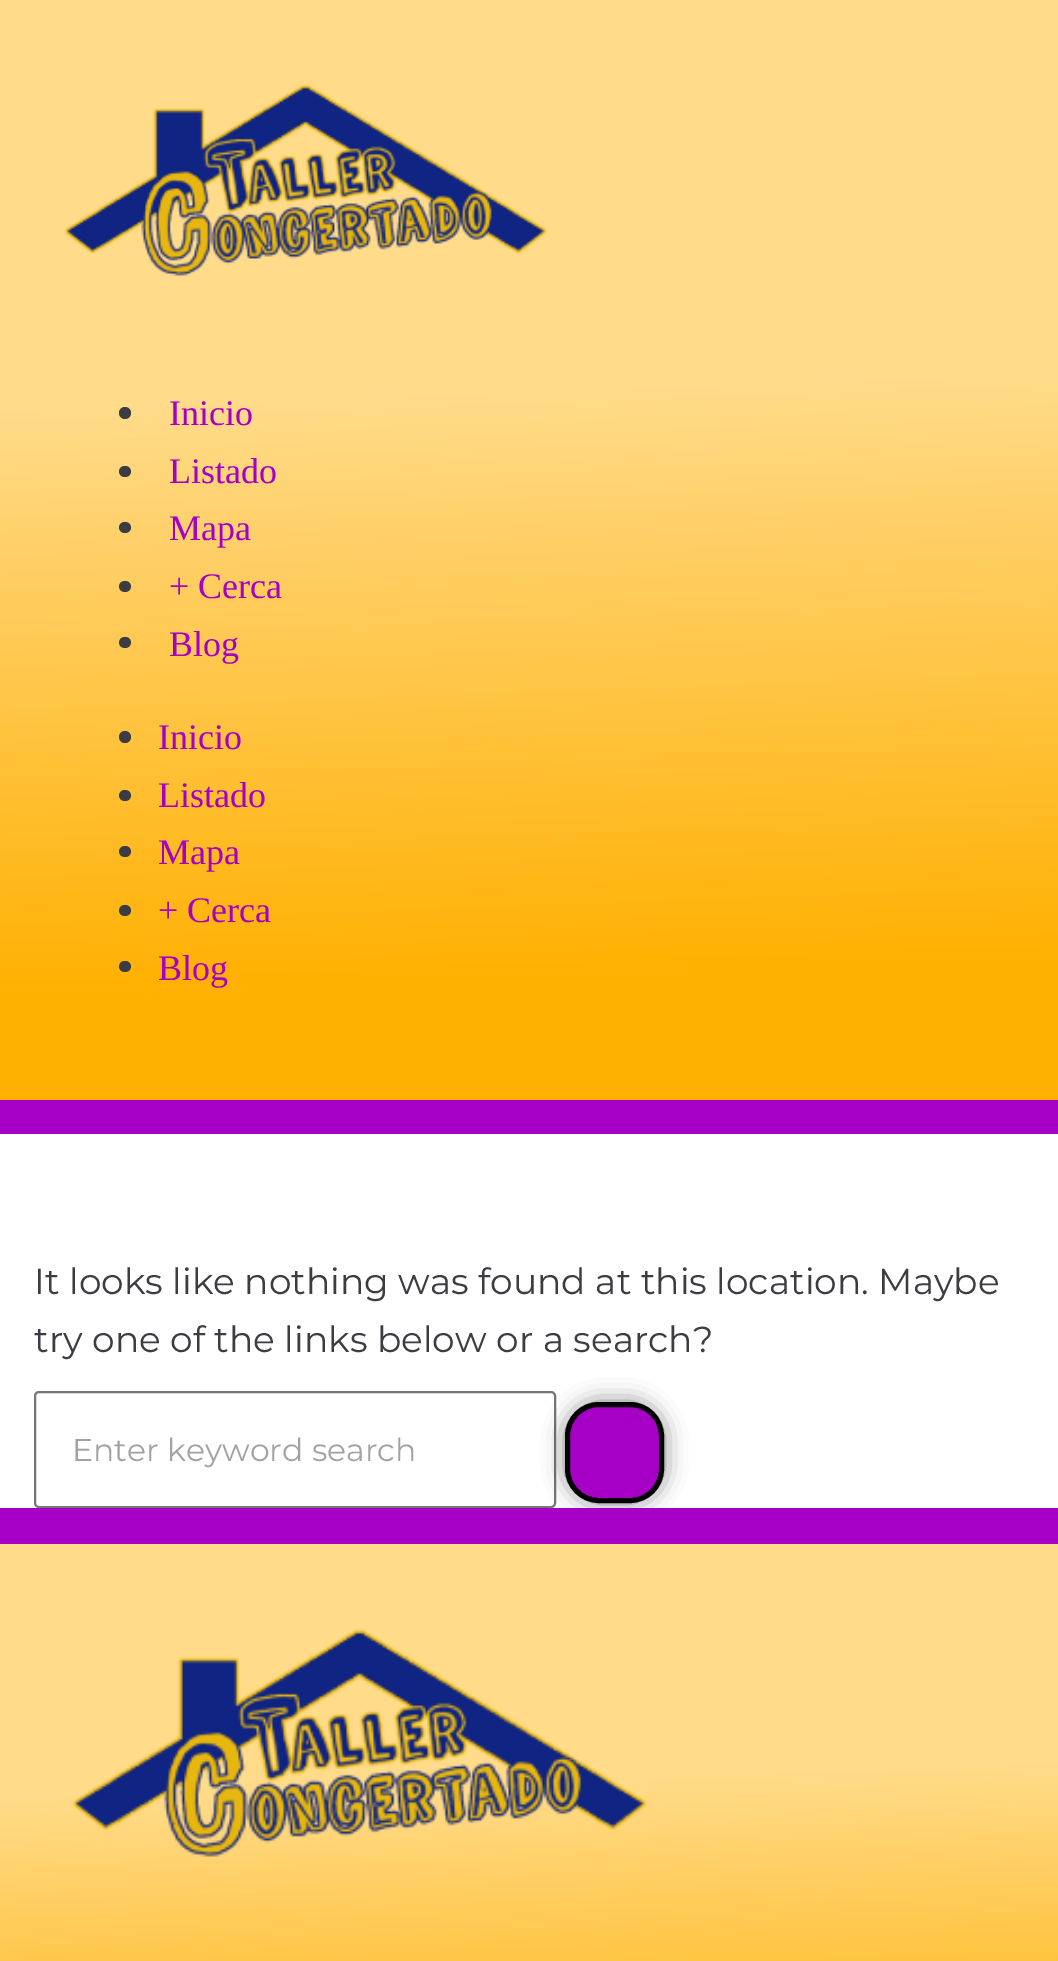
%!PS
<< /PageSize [1058 1961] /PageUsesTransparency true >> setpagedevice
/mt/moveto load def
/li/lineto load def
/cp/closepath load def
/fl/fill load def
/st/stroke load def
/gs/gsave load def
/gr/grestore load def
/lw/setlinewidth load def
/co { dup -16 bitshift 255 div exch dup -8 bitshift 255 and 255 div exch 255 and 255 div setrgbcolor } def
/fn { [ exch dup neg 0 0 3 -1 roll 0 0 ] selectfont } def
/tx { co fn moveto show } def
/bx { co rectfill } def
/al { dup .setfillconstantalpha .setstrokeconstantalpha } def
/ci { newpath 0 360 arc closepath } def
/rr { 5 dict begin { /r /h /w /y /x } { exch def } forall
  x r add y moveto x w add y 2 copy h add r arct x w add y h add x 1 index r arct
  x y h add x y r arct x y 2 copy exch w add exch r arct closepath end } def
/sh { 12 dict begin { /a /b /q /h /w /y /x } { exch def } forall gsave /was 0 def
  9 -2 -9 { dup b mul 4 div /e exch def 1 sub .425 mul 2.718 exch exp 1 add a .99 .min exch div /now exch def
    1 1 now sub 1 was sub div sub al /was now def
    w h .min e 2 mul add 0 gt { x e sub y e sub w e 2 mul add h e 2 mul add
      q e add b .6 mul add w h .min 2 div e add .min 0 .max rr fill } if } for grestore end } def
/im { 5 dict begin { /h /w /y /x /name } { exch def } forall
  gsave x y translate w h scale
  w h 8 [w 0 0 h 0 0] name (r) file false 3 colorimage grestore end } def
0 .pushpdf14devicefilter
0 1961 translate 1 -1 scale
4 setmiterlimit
0 0 1058 1961 16#FFFFFF bx
0 1100 1058 34 16#A600C6 bx
gs 0 0 mt 1058 0 li 1058 1100 li 0 1100 li cp clip newpath
<< /ShadingType 2 /ColorSpace /DeviceRGB /Coords [510 -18 550 1118] /Extend [true true] /Function << /FunctionType 3 /Domain [0 1] /Functions [<< /FunctionType 2 /Domain [0 1] /C0 [1 .859 .541] /C1 [1 .859 .541] /N 1 >> << /FunctionType 2 /Domain [0 1] /C0 [1 .859 .541] /C1 [1 .69 0] /N 1 >> << /FunctionType 2 /Domain [0 1] /C0 [1 .69 0] /C1 [1 .69 0] /N 1 >>] /Bounds [.36 .88] /Encode [0 1 0 1 0 1] >> >> shfill gr
(media/1.raw) 64 84 483 192 im
16#3B3D42 co
125 413 6 ci fl
119 466 12 11 5.5 rr fl
119 522 12 11 5.5 rr fl
119 581 12 11 5.5 rr fl
119 637 12 11 5.5 rr fl
125 737 6 ci fl
119 790 12 11 5.5 rr fl
119 846 12 11 5.5 rr fl
119 905 12 11 5.5 rr fl
119 961 12 11 5.5 rr fl
16#767676 co
2 lw
35 1392 520 115 4 rr st
16#000000 co
565 1402 99 101 34 11 .5 sh
16#A600C6 co
567.5 1404.5 94 96 31.5 rr gs fl gr
16#000000 co
5 lw
st
0 1508 1058 36 16#A600C6 bx
gs 0 1544 mt 1058 1544 li 1058 1961 li 0 1961 li cp clip newpath
<< /ShadingType 2 /ColorSpace /DeviceRGB /Coords [518 1525 542 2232] /Extend [true true] /Function << /FunctionType 3 /Domain [0 1] /Functions [<< /FunctionType 2 /Domain [0 1] /C0 [1 .859 .541] /C1 [1 .859 .541] /N 1 >> << /FunctionType 2 /Domain [0 1] /C0 [1 .859 .541] /C1 [1 .69 0] /N 1 >> << /FunctionType 2 /Domain [0 1] /C0 [1 .69 0] /C1 [1 .69 0] /N 1 >>] /Bounds [.36 .88] /Encode [0 1 0 1 0 1] >> >> shfill gr
(media/2.raw) 72 1628 575 229 im
(Inicio) 169 425 /LiberationSerif-Regular 36 16#A600C6 tx
(Listado) 169 483 /LiberationSerif-Regular 36 16#A600C6 tx
(Mapa) 169 540 /LiberationSerif-Regular 36 16#A600C6 tx
(+ Cerca) 169 598 /LiberationSerif-Regular 36 16#A600C6 tx
(Blog) 169 656 /LiberationSerif-Regular 36 16#A600C6 tx
(Inicio) 158 749 /LiberationSerif-Regular 36 16#A600C6 tx
(Listado) 158 807 /LiberationSerif-Regular 36 16#A600C6 tx
(Mapa) 158 864 /LiberationSerif-Regular 36 16#A600C6 tx
(+ Cerca) 158 922 /LiberationSerif-Regular 36 16#A600C6 tx
(Blog) 158 980 /LiberationSerif-Regular 36 16#A600C6 tx
(It looks like nothing was found at this location. Maybe) 34 1294 /Montserrat-Regular 36 16#3B3D42 tx
(try one of the links below or a search?) 34 1352 /Montserrat-Regular 36 16#3B3D42 tx
(Enter keyword search) 72 1461 /Montserrat-Regular 31.5 16#A1A2A4 tx
.poppdf14devicefilter showpage
